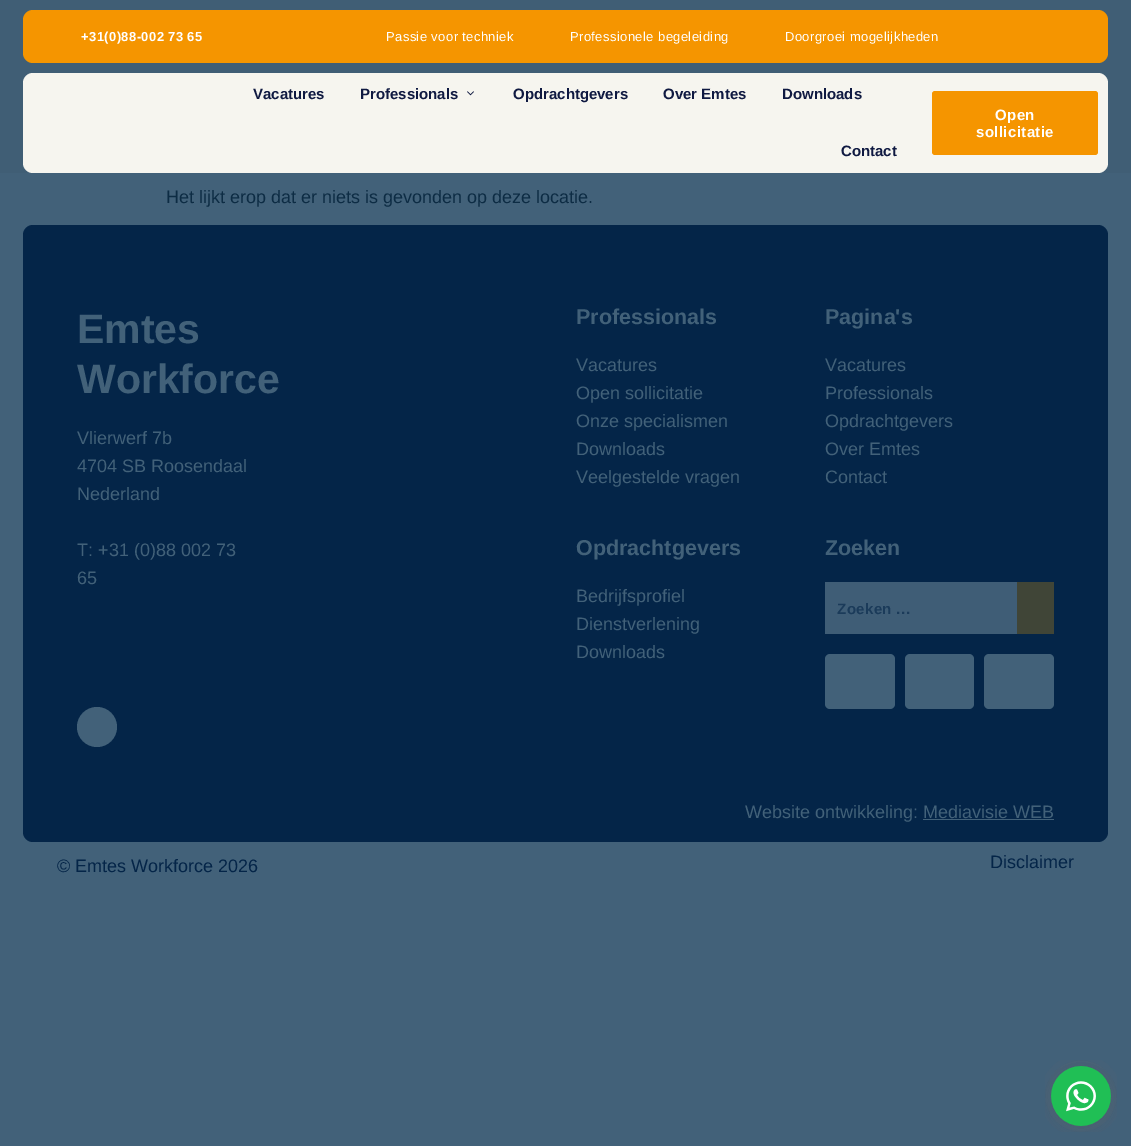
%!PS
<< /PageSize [1131 1146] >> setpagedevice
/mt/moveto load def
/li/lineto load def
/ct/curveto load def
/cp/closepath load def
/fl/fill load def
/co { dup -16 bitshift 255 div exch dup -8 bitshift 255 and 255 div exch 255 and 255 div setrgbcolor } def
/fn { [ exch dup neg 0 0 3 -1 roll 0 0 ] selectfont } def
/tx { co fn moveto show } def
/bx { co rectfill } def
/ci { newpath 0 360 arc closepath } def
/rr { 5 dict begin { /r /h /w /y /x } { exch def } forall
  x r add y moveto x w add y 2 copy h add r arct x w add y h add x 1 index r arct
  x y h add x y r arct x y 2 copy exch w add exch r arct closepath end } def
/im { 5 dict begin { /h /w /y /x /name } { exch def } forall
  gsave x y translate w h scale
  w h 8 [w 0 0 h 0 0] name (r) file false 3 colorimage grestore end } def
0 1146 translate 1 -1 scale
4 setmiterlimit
0 0 1131 1146 16#426179 bx
0 0 1131 173 16#405E75 bx
16#F59500 co
23 10 1085 53 10 rr fl
16#F6F5EF co
23 73 1085 100 10 rr fl
(media/1.raw) 467 91 7 5 im
16#F59500 co
932 91 166 64 3 rr fl
16#042548 co
33 225 mt 1098 225 li 1103.5 225 1108 229.5 1108 235 ct 1108 798 li 23 798 li 23 235 li 23 229.5 27.5 225 33 225 ct cp fl
16#426179 co
97 727 20 ci fl
825 582 192 52 16#3F5D76 bx
1017 582 37 52 16#404537 bx
16#426179 co
825 654 70 55 5 rr fl
905 654 69 55 5 rr fl
984 654 70 55 5 rr fl
16#042548 co
23 798 mt 1108 798 li 1108 832 li 1108 837.5 1103.5 842 1098 842 ct 33 842 li 27.5 842 23 837.5 23 832 ct cp fl
923 819 131 1 16#426179 bx
(media/2.raw) 1045 1060 72 72 im
/LiberationSans-Bold 13 fn
16#FFFFFF co
81 41 mt .4 0 (+31\(0\)88-002 73 65) ashow
/LiberationSans-Regular 13 fn
386 41 mt .4 0 (Passie voor techniek) ashow
570 41 mt .4 0 (Professionele begeleiding) ashow
785 41 mt .4 0 (Doorgroei mogelijkheden) ashow
(Vacatures) 253 99 /LiberationSans-Bold 15 16#0F1941 tx
(Professionals) 360 99 /LiberationSans-Bold 15 16#0F1941 tx
(Opdrachtgevers) 513 99 /LiberationSans-Bold 15 16#0F1941 tx
(Over Emtes) 663 99 /LiberationSans-Bold 15 16#0F1941 tx
(Downloads) 782 99 /LiberationSans-Bold 15 16#0F1941 tx
(Contact) 841 156 /LiberationSans-Bold 15 16#0F1941 tx
16#FFFFFF co
995 120 mt .4 0 (Open) ashow
976 137 mt .4 0 (sollicitatie) ashow
(Het lijkt erop dat er niets is gevonden op deze locatie.) 166 203 /LiberationSans-Regular 18 16#0D2C44 tx
(Emtes) 77 343 /LiberationSans-Bold 41 16#426179 tx
(Workforce) 77 393 /LiberationSans-Bold 41 16#426179 tx
(Vlierwerf 7b) 77 444 /LiberationSans-Regular 18 16#426179 tx
(4704 SB Roosendaal) 77 472 /LiberationSans-Regular 18 16#426179 tx
(Nederland) 77 500 /LiberationSans-Regular 18 16#426179 tx
(T: +31 \(0\)88 002 73) 77 556 /LiberationSans-Regular 18 16#426179 tx
(65) 77 584 /LiberationSans-Regular 18 16#426179 tx
(Professionals) 576 324 /LiberationSans-Bold 21.5 16#426179 tx
(Vacatures) 576 371 /LiberationSans-Regular 18 16#426179 tx
(Open sollicitatie) 576 399 /LiberationSans-Regular 18 16#426179 tx
(Onze specialismen) 576 427 /LiberationSans-Regular 18 16#426179 tx
(Downloads) 576 455 /LiberationSans-Regular 18 16#426179 tx
(Veelgestelde vragen) 576 483 /LiberationSans-Regular 18 16#426179 tx
(Opdrachtgevers) 576 555 /LiberationSans-Bold 21.5 16#426179 tx
(Bedrijfsprofiel) 576 602 /LiberationSans-Regular 18 16#426179 tx
(Dienstverlening) 576 630 /LiberationSans-Regular 18 16#426179 tx
(Downloads) 576 658 /LiberationSans-Regular 18 16#426179 tx
(Pagina's) 825 324 /LiberationSans-Bold 21.5 16#426179 tx
(Vacatures) 825 371 /LiberationSans-Regular 18 16#426179 tx
(Professionals) 825 399 /LiberationSans-Regular 18 16#426179 tx
(Opdrachtgevers) 825 427 /LiberationSans-Regular 18 16#426179 tx
(Over Emtes) 825 455 /LiberationSans-Regular 18 16#426179 tx
(Contact) 825 483 /LiberationSans-Regular 18 16#426179 tx
(Zoeken) 825 555 /LiberationSans-Bold 21.5 16#426179 tx
/LiberationSans-Bold 15 fn
16#1B3B5A co
837 614 mt .4 0 (Zoeken ...) ashow
(Website ontwikkeling: Mediavisie WEB) 745 818 /LiberationSans-Regular 18 16#426179 tx
(© Emtes Workforce 2026) 57 872 /LiberationSans-Regular 18 16#042548 tx
(Disclaimer) 990 868 /LiberationSans-Regular 18 16#042548 tx
showpage
